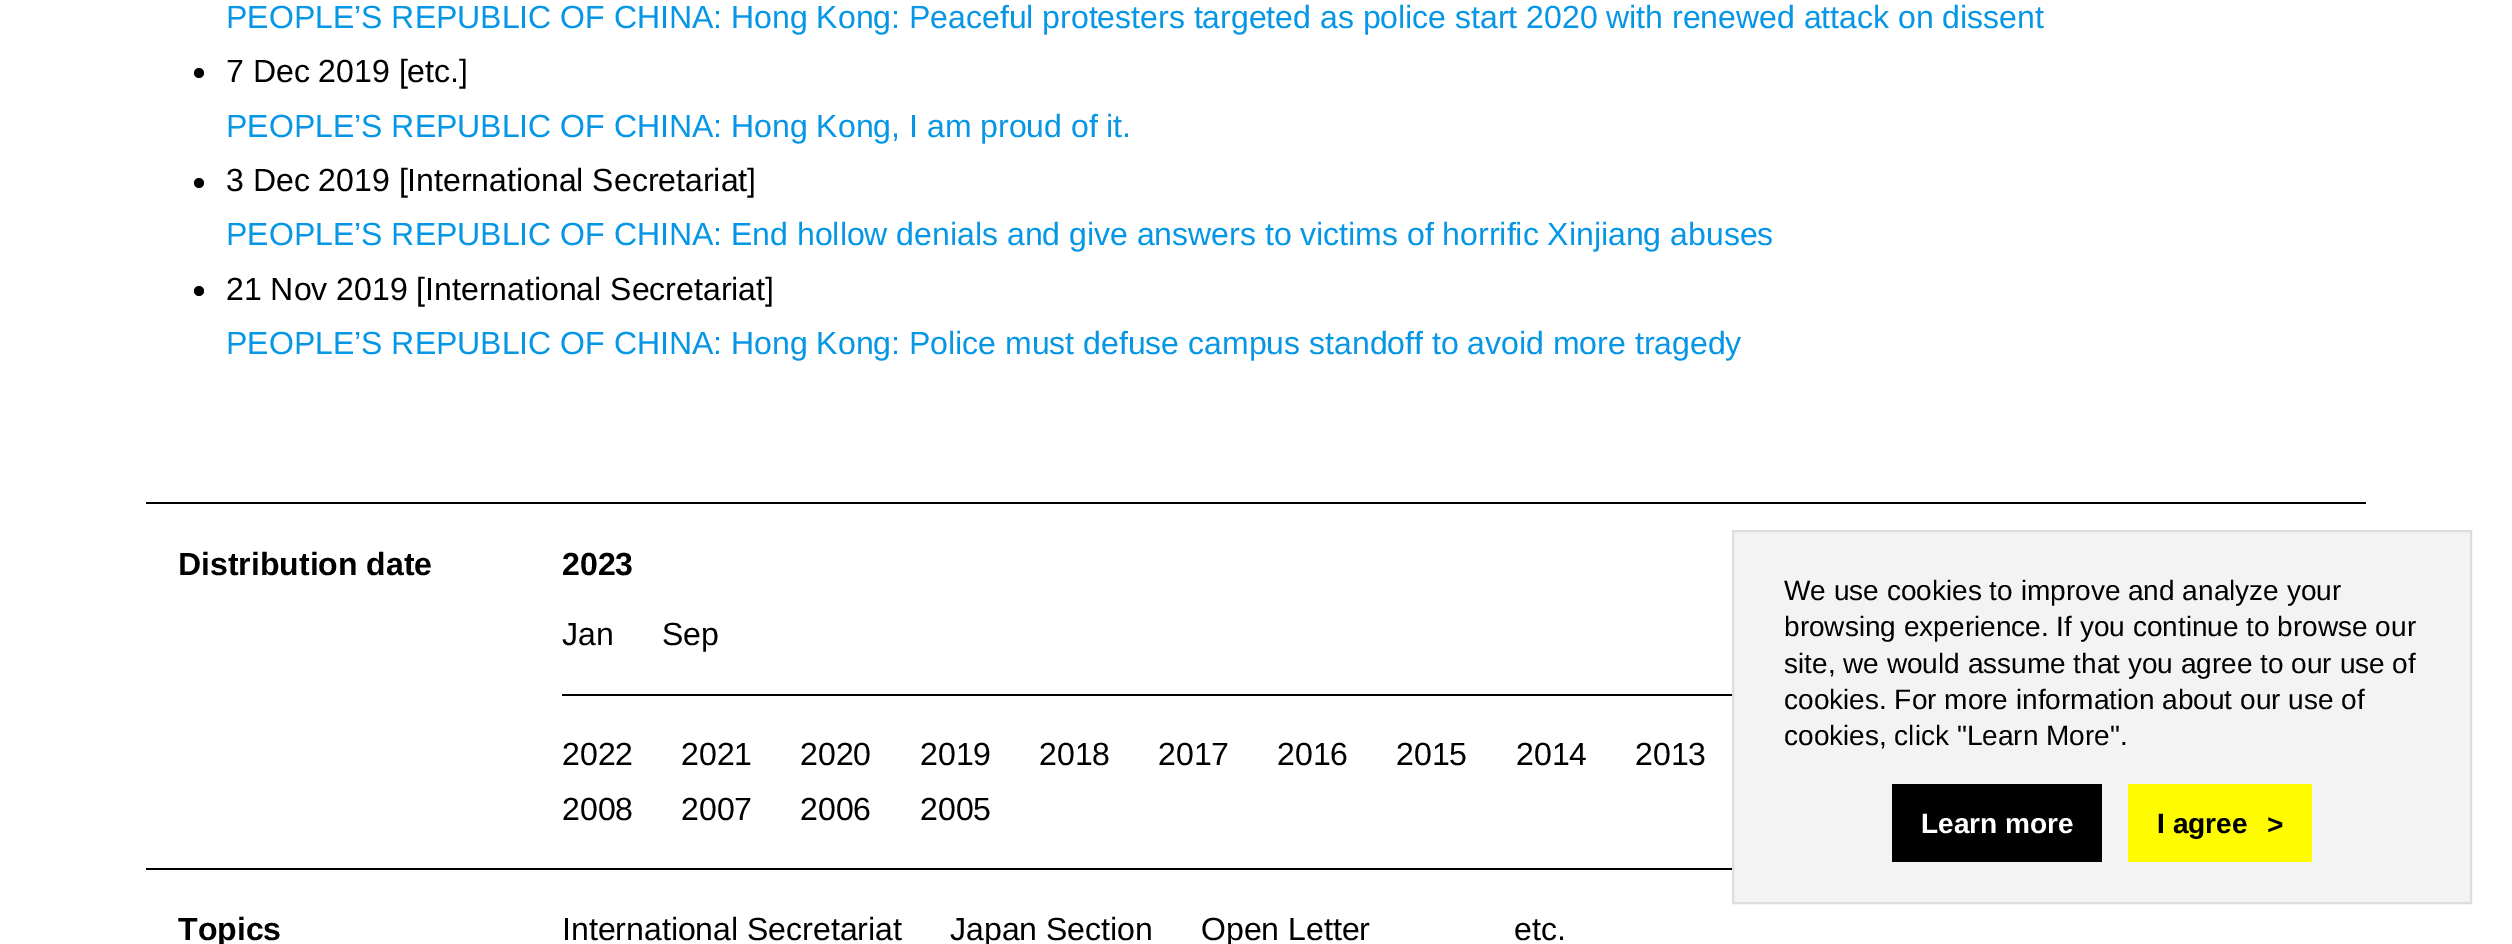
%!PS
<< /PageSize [2512 944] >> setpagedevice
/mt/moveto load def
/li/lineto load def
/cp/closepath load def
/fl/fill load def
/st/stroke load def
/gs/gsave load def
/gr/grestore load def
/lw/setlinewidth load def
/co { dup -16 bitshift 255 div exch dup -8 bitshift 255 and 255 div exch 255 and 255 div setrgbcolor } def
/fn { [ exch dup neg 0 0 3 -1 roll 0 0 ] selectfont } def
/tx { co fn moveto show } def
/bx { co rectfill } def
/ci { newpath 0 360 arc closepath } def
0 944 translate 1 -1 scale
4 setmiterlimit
0 0 2512 944 16#FFFFFF bx
16#000000 co
199 73 5 ci fl
199 183 5 ci fl
199 291 5 ci fl
146 502 2220 2 16#000000 bx
146 868 1586 2 16#000000 bx
562 694 1170 2 16#000000 bx
16#F3F3F3 co
1733 531 mt 2471 531 li 2471 903 li 1733 903 li cp gs fl gr
16#DDDDDD co
2 lw
st
1892 784 210 78 16#000000 bx
2128 784 184 78 16#FFFB00 bx
(PEOPLE’S REPUBLIC OF CHINA: Hong Kong: Peaceful protesters targeted as police start 2020 with renewed attack on dissent) 226 28 /LiberationSans-Regular 32 16#0596E6 tx
(7 Dec 2019 [etc.]) 226 82 /LiberationSans-Regular 32 16#000000 tx
(PEOPLE’S REPUBLIC OF CHINA: Hong Kong, I am proud of it.) 226 137 /LiberationSans-Regular 32 16#0596E6 tx
(3 Dec 2019 [International Secretariat]) 226 191 /LiberationSans-Regular 32 16#000000 tx
(PEOPLE’S REPUBLIC OF CHINA: End hollow denials and give answers to victims of horrific Xinjiang abuses) 226 245 /LiberationSans-Regular 32 16#0596E6 tx
(21 Nov 2019 [International Secretariat]) 226 300 /LiberationSans-Regular 32 16#000000 tx
(PEOPLE’S REPUBLIC OF CHINA: Hong Kong: Police must defuse campus standoff to avoid more tragedy) 226 354 /LiberationSans-Regular 32 16#0596E6 tx
(Distribution date) 178 575 /LiberationSans-Bold 32 16#000000 tx
(2023) 562 575 /LiberationSans-Bold 32 16#000000 tx
(Jan) 562 645 /LiberationSans-Regular 32 16#000000 tx
(Sep) 662 645 /LiberationSans-Regular 32 16#000000 tx
(2022) 562 765 /LiberationSans-Regular 32 16#000000 tx
(2021) 681 765 /LiberationSans-Regular 32 16#000000 tx
(2020) 800 765 /LiberationSans-Regular 32 16#000000 tx
(2019) 920 765 /LiberationSans-Regular 32 16#000000 tx
(2018) 1039 765 /LiberationSans-Regular 32 16#000000 tx
(2017) 1158 765 /LiberationSans-Regular 32 16#000000 tx
(2016) 1277 765 /LiberationSans-Regular 32 16#000000 tx
(2015) 1396 765 /LiberationSans-Regular 32 16#000000 tx
(2014) 1516 765 /LiberationSans-Regular 32 16#000000 tx
(2013) 1635 765 /LiberationSans-Regular 32 16#000000 tx
(2008) 562 820 /LiberationSans-Regular 32 16#000000 tx
(2007) 681 820 /LiberationSans-Regular 32 16#000000 tx
(2006) 800 820 /LiberationSans-Regular 32 16#000000 tx
(2005) 920 820 /LiberationSans-Regular 32 16#000000 tx
(Topics) 178 940 /LiberationSans-Bold 32 16#000000 tx
(International Secretariat) 562 940 /LiberationSans-Regular 32 16#000000 tx
(Japan Section) 950 940 /LiberationSans-Regular 32 16#000000 tx
(Open Letter) 1201 940 /LiberationSans-Regular 32 16#000000 tx
(etc.) 1514 940 /LiberationSans-Regular 32 16#000000 tx
(We use cookies to improve and analyze your) 1784 600 /LiberationSans-Regular 28 16#000000 tx
(browsing experience. If you continue to browse our) 1784 636 /LiberationSans-Regular 28 16#000000 tx
(site, we would assume that you agree to our use of) 1784 673 /LiberationSans-Regular 28 16#000000 tx
(cookies. For more information about our use of) 1784 709 /LiberationSans-Regular 28 16#000000 tx
(cookies, click "Learn More".) 1784 745 /LiberationSans-Regular 28 16#000000 tx
(Learn more) 1921 833 /LiberationSans-Bold 28 16#FFFFFF tx
(I agree) 2157 833 /LiberationSans-Bold 28 16#000000 tx
(>) 2267 834 /LiberationSans-Bold 28 16#000000 tx
showpage
